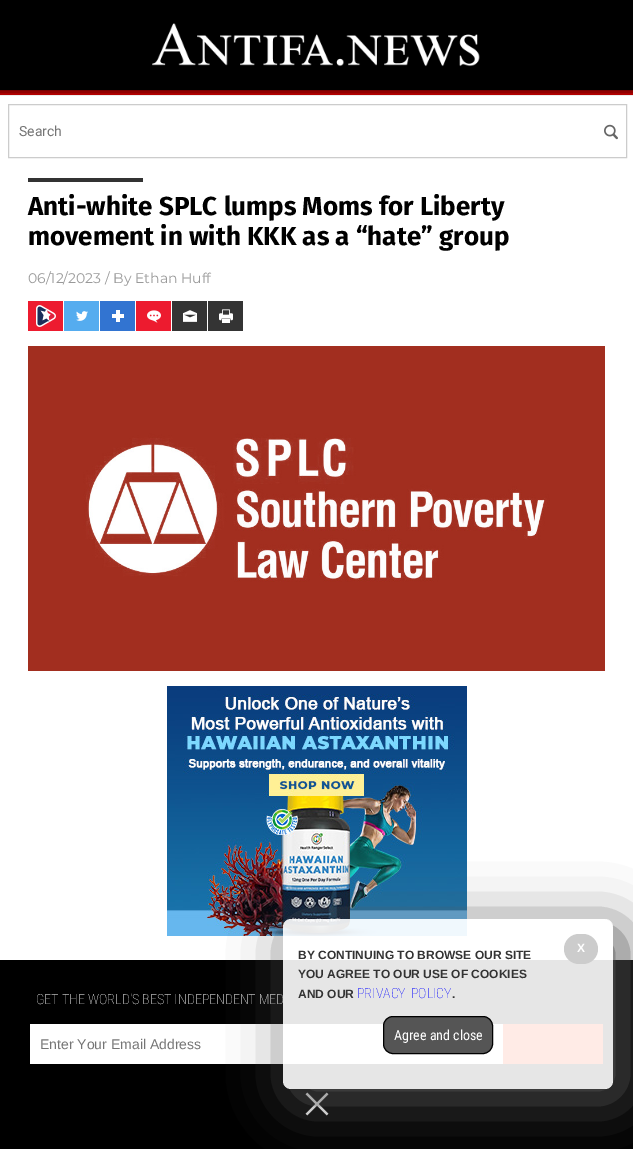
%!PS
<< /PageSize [633 1149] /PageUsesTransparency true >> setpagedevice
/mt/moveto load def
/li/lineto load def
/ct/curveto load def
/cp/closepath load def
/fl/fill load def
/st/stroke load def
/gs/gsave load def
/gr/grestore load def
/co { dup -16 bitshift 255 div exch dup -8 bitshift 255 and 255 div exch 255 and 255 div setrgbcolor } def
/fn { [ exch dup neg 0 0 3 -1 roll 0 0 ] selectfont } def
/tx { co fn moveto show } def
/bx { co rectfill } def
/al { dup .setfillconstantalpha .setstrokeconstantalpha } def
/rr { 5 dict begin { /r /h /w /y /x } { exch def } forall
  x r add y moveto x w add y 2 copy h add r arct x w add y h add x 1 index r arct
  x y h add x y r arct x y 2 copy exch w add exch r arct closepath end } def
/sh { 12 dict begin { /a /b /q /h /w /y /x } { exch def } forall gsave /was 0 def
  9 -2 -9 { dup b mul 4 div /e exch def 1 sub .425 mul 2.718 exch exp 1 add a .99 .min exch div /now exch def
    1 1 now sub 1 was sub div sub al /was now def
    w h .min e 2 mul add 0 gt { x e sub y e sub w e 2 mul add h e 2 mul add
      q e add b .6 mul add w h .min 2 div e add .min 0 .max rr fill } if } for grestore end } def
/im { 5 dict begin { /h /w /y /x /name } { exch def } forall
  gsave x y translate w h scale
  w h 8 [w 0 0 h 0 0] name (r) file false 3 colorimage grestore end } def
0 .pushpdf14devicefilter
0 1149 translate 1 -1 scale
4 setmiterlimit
0 0 633 1149 16#E60000 bx
16#000000 co
-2 -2 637 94 0 5 .75 sh
0 0 633 90 16#000000 bx
(media/1.raw) 152 23 328 44 im
0 96 633 864 16#FFFFFF bx
0 95 633 1 16#ECECEC bx
16#CCCCCC co
8.5 104.5 618 53 rectstroke
(media/2.raw) 604 124 14 16 im
28 178 115 4 16#333333 bx
28 301 35 30 16#ED1B2F bx
(media/3.raw) 36 305 20 22 im
64 301 35 30 16#55ACEF bx
(media/4.raw) 76 311 12 10 im
100 301 35 30 16#3274D1 bx
(media/5.raw) 112 310 12 12 im
136 301 35 30 16#ED1B2F bx
(media/6.raw) 147 310 14 13 im
172 301 35 30 16#343434 bx
(media/7.raw) 183 310 14 12 im
208 301 35 30 16#343434 bx
(media/8.raw) 219 309 14 14 im
(media/9.raw) 28 346 577 325 im
(media/10.raw) 167 686 300 250 im
0 960 633 189 16#000000 bx
30 1024 473 40 16#FFFFFF bx
503 1024 100 40 16#FF3300 bx
(media/11.raw) 305 1092 24 24 im
gs
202 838 mt 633 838 li 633 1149 li 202 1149 li cp 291 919 mt 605 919 li 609.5 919 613 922.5 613 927 ct 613 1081 li 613 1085.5 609.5 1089 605 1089 ct 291 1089 li 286.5 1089 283 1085.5 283 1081 ct 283 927 li 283 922.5 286.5 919 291 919 ct cp eoclip newpath
16#555555 co
293 929 330 170 8 30 1 sh
gr
(Search) 19 136 /Roboto-Regular 14 16#757575 tx
(Anti-white SPLC lumps Moms for Liberty) 28 215 /FiraSans-Bold 26 16#000000 tx
(movement in with KKK as a “hate” group) 28 245 /FiraSans-Bold 26 16#000000 tx
(06/12/2023 / By Ethan Huff) 28 283 /Montserrat-Regular 14 16#999999 tx
(GET THE WORLD'S BEST INDEPENDENT MED) 36 1004 /RobotoCondensed-Thin 14 16#FFFFFF tx
(Enter Your Email Address) 40 1049 /LiberationSans-Regular 14 16#757575 tx
0.9 al
16#FFFFFF co
283 919 330 170 8 rr fl
1 al
16#CCCCCC co
564 934 34 30 15 rr fl
(X) 577 952 /LiberationSans-Bold 12 16#FFFFFF tx
(BY CONTINUING TO BROWSE OUR SITE) 298 959 /LiberationSans-Bold 12 16#333333 tx
(YOU AGREE TO OUR USE OF COOKIES) 298 978 /LiberationSans-Bold 12 16#333333 tx
(AND OUR) 298 998 /LiberationSans-Bold 12 16#333333 tx
/RobotoCondensed-Thin 14 fn
16#0000FF co
357 998 mt 2 0 32 (PRIVACY POLICY) widthshow
(.) 452 998 /LiberationSans-Bold 12 16#333333 tx
16#555555 co
383.5 1016.5 109 37 9.5 rr gs fl gr
16#000000 co
st
(Agree and close) 394 1040 /RobotoCondensed-Regular 14 16#FFFFFF tx
.poppdf14devicefilter showpage
